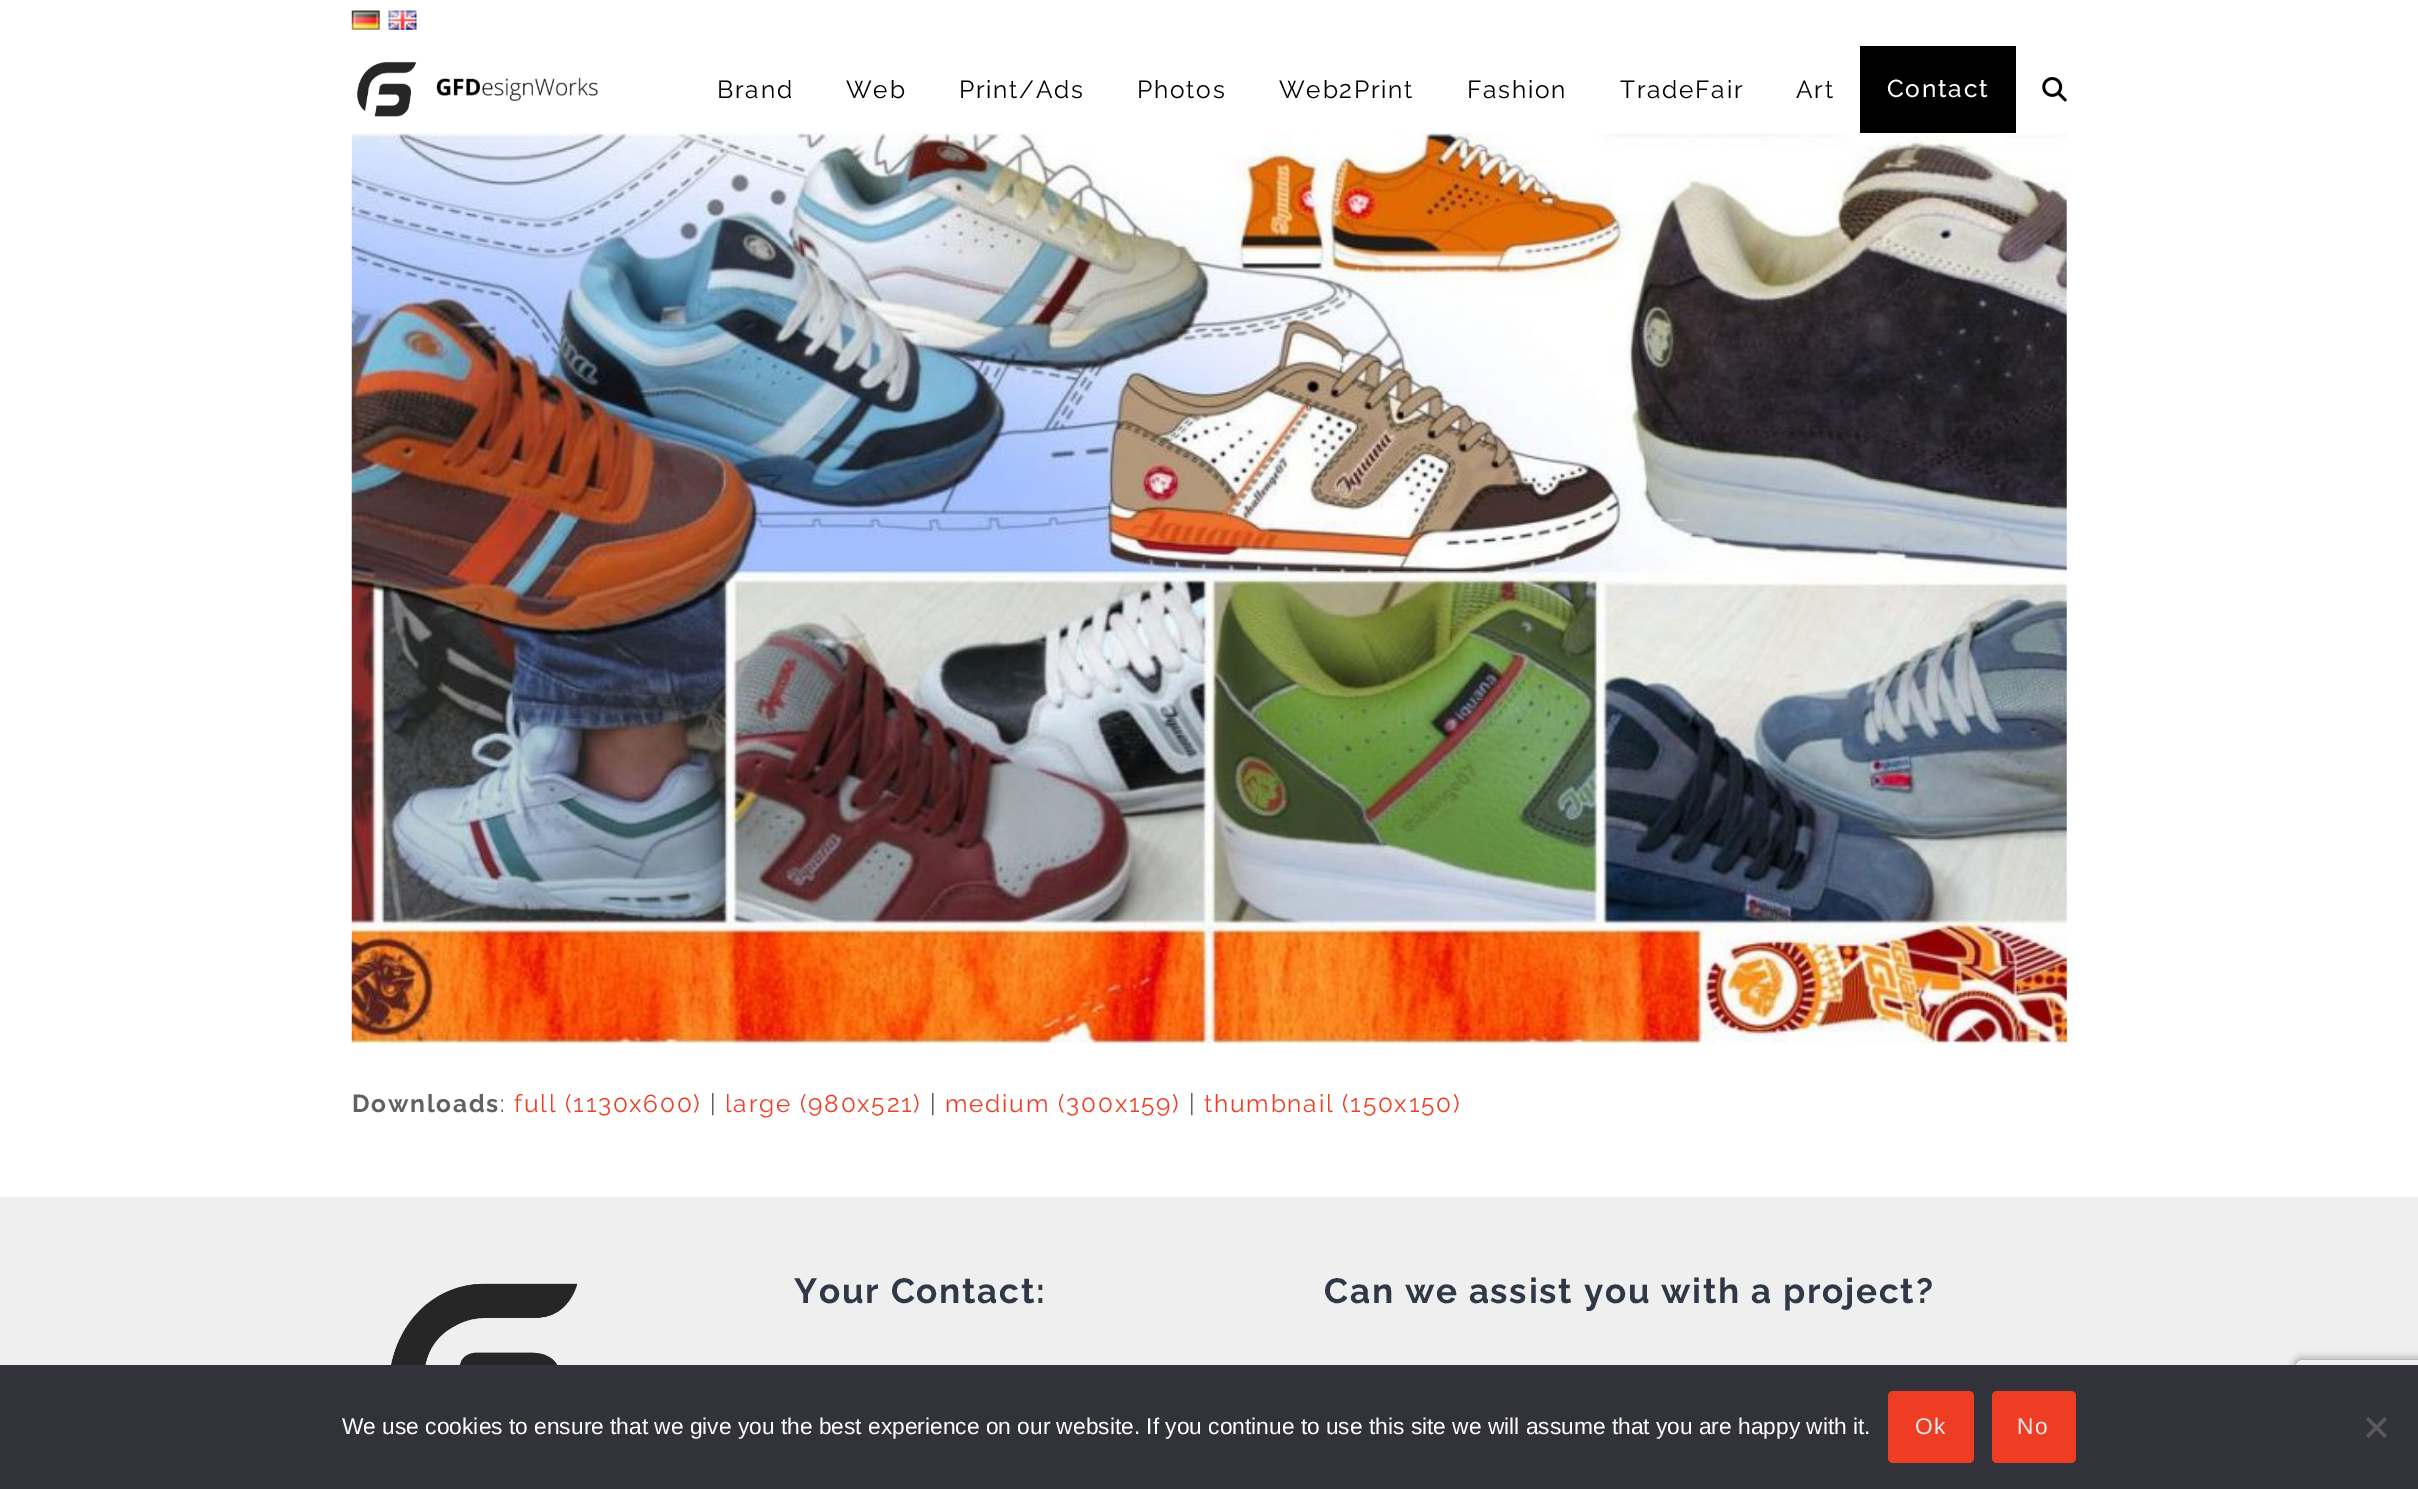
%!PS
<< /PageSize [2418 1489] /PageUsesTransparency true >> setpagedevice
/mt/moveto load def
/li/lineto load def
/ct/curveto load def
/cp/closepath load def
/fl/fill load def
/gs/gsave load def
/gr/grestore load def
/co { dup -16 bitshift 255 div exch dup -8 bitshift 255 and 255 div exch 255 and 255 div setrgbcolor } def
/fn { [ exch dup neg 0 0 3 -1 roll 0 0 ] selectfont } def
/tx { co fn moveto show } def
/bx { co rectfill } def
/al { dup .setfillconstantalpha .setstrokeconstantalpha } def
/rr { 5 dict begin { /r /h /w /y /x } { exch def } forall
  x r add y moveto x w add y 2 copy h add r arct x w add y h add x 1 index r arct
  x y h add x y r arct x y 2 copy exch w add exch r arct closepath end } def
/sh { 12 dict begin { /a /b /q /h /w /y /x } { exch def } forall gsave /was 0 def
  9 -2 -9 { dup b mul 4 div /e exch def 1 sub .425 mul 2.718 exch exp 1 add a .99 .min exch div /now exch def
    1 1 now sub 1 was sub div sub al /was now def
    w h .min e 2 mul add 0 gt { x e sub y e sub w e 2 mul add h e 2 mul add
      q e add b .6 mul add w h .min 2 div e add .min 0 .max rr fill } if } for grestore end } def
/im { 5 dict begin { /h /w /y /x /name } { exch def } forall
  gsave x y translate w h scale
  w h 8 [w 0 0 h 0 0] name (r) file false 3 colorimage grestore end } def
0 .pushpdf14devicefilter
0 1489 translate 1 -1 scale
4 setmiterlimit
0 0 2418 1489 16#FFFFFF bx
(media/1.raw) 351 10 29 20 im
(media/2.raw) 388 10 29 20 im
(media/3.raw) 357 61 241 56 im
1860 46 156 87 16#000000 bx
(media/4.raw) 2042 77 25 25 im
(media/5.raw) 351 133 1716 910 im
0 1197 2418 168 16#EFEFEF bx
(media/6.raw) 391 1283 187 82 im
gs
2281 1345 mt 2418 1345 li 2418 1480 li 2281 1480 li cp 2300 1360 mt 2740 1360 li 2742 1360 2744 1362 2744 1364 ct 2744 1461 li 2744 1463 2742 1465 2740 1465 ct 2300 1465 li 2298 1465 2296 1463 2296 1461 ct 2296 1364 li 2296 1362 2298 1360 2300 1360 ct cp eoclip newpath
16#808080 co
2296 1360 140 105 4 4.5 1 sh
gr
0 1365 2418 124 16#32323A bx
16#EF3D24 co
1888 1391 86 72 5 rr fl
1992 1391 84 72 5 rr fl
16#59595D co
2384.5 1417 mt 2387 1419.5 li 2368.5 1438 li 2366 1435.5 li cp fl
2366 1419.5 mt 2368.5 1417 li 2387 1435.5 li 2384.5 1438 li cp fl
/Raleway-Regular 24.5 fn
16#000000 co
717 98 mt 1.75 0 (Brand) ashow
846 98 mt 1.75 0 (Web) ashow
959 98 mt 1.75 0 (Print/Ads) ashow
1137 98 mt 1.75 0 (Photos) ashow
1279 98 mt 1.75 0 (Web2Print) ashow
1467 98 mt 1.75 0 (Fashion) ashow
1620 98 mt 1.75 0 (TradeFair) ashow
1796 98 mt 1.75 0 (Art) ashow
/Raleway-Medium 24.5 fn
16#FFFFFF co
1887 97 mt 1.75 0 (Contact) ashow
/Raleway-Bold 24.5 fn
16#616161 co
352 1112 mt 1.75 0 (Downloads) ashow
/Raleway-Regular 24.5 fn
500 1112 mt 1.75 0 (:) ashow
16#EF3D24 co
514 1112 mt 1.75 0 (full \(1130x600\)) ashow
16#616161 co
710 1112 mt 1.75 0 (|) ashow
16#EF3D24 co
725 1112 mt 1.75 0 (large \(980x521\)) ashow
16#616161 co
930 1112 mt 1.75 0 (|) ashow
16#EF3D24 co
945 1112 mt 1.75 0 (medium \(300x159\)) ashow
16#616161 co
1189 1112 mt 1.75 0 (|) ashow
16#EF3D24 co
1204 1112 mt 1.75 0 (thumbnail \(150x150\)) ashow
/Raleway-Bold 35 fn
16#303847 co
794 1303 mt 1.75 0 (Your Contact:) ashow
1324 1303 mt 1.75 0 (Can we assist you with a project?) ashow
(We use cookies to ensure that we give you the best experience on our website. If you continue to use this site we will assume that you are happy with it.) 342 1434 /LiberationSans-Regular 22.75 16#FFFFFF tx
16#EAEAEA co
1915 1434 mt 1.75 0 (Ok) ashow
2017 1434 mt 1.75 0 (No) ashow
.poppdf14devicefilter showpage
